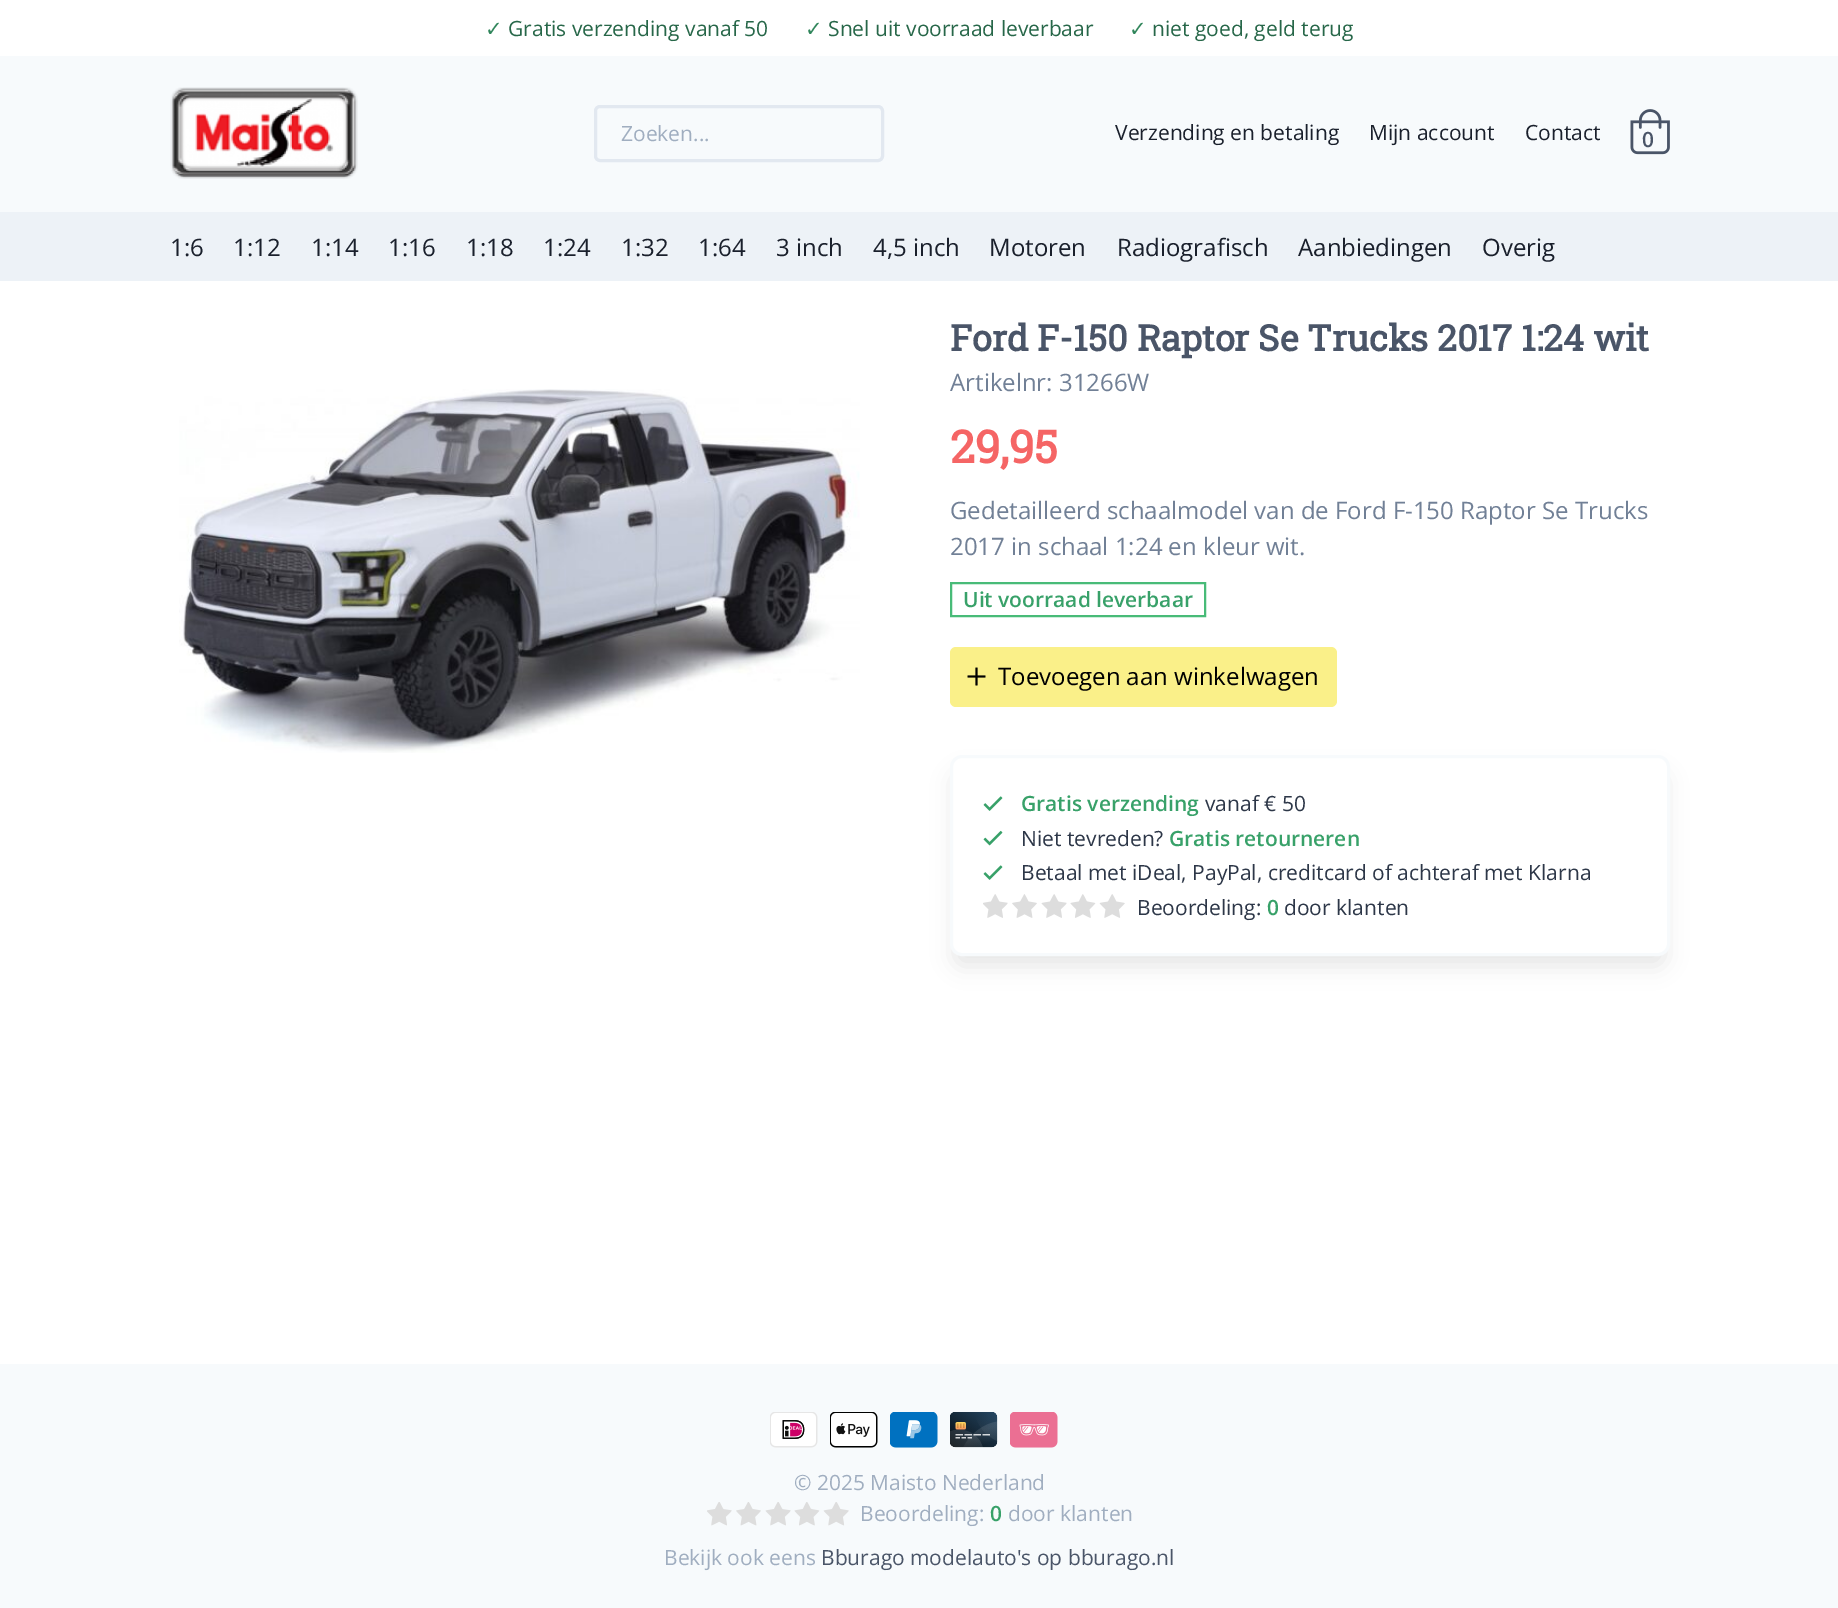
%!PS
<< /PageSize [1838 1608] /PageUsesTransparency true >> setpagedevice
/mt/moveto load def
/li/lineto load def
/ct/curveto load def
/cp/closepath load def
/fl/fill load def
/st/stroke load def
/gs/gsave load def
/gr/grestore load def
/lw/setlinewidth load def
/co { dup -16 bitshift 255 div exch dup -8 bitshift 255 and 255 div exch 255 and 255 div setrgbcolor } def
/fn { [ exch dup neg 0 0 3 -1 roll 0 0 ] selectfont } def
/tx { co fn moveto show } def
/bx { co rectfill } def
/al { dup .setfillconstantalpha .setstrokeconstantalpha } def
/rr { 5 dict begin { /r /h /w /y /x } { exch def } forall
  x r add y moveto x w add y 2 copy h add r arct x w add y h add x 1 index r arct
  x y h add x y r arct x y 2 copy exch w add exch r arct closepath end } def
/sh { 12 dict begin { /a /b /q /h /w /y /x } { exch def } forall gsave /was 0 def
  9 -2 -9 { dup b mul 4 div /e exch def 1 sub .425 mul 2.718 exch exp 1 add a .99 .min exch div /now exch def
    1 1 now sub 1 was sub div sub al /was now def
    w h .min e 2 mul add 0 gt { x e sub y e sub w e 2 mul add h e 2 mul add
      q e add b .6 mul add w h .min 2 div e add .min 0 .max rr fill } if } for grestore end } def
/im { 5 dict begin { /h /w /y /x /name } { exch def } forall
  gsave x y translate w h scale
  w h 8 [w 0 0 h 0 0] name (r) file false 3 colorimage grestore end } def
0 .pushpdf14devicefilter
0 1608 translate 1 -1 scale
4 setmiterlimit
0 0 1838 1608 16#FFFFFF bx
0 56 1838 156 16#F7FAFC bx
(media/1.raw) 170 87 188 92 im
16#E2E8F0 co
3 lw
595.5 106.5 287 54 4.5 rr st
(media/2.raw) 1630 109 40 46 im
0 212 1838 69 16#EDF2F7 bx
(media/3.raw) 179 389 681 364 im
16#48BB78 co
2 lw
951 583 254 33 rectstroke
16#FAF089 co
950 647 387 60 6 rr fl
(media/4.raw) 967 667 19 19 im
gs
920 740 mt 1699 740 li 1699 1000 li 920 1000 li cp 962 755 mt 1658 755 li 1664.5 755 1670 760.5 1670 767 ct 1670 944 li 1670 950.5 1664.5 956 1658 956 ct 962 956 li 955.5 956 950 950.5 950 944 ct 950 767 li 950 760.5 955.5 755 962 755 ct cp eoclip newpath
16#000000 co
954 774 711 192 8 11 .1 sh
gr
16#F7FAFC co
3 lw
951.5 756.5 717 198 10.5 rr st
(media/5.raw) 983 796 20 15 im
(media/6.raw) 983 830 20 16 im
(media/5.raw) 983 865 20 15 im
(media/7.raw) 983 894 142 24 im
0 1364 1838 244 16#F7FAFC bx
(media/8.raw) 770 1412 48 36 im
(media/9.raw) 830 1412 48 36 im
(media/10.raw) 890 1412 48 36 im
(media/11.raw) 950 1412 48 36 im
(media/12.raw) 1010 1412 48 36 im
(media/13.raw) 707 1502 142 24 im
(✓) 485 36 /DejaVuSans-Regular 21 16#2F855A tx
(Gratis verzending vanaf 50) 508 36 /OpenSans-Regular 21 16#276749 tx
(✓) 805 36 /DejaVuSans-Regular 21 16#2F855A tx
(Snel uit voorraad leverbaar) 828 36 /OpenSans-Regular 21 16#276749 tx
(✓) 1129 36 /DejaVuSans-Regular 21 16#2F855A tx
(niet goed, geld terug) 1152 36 /OpenSans-Regular 21 16#276749 tx
(Zoeken...) 621 141 /OpenSans-Regular 21 16#A0AEC0 tx
(Verzending en betaling) 1115 140 /OpenSans-Regular 21 16#1A202C tx
(Mijn account) 1369 140 /OpenSans-Regular 21 16#1A202C tx
(Contact) 1525 140 /OpenSans-Regular 21 16#1A202C tx
(0) 1642 147 /OpenSans-SemiBold 21 16#4A5568 tx
(1:6) 170 256 /OpenSans-Regular 24 16#1A202C tx
(1:12) 233 256 /OpenSans-Regular 24 16#1A202C tx
(1:14) 311 256 /OpenSans-Regular 24 16#1A202C tx
(1:16) 388 256 /OpenSans-Regular 24 16#1A202C tx
(1:18) 466 256 /OpenSans-Regular 24 16#1A202C tx
(1:24) 543 256 /OpenSans-Regular 24 16#1A202C tx
(1:32) 621 256 /OpenSans-Regular 24 16#1A202C tx
(1:64) 698 256 /OpenSans-Regular 24 16#1A202C tx
(3 inch) 776 256 /OpenSans-Regular 24 16#1A202C tx
(4,5 inch) 873 256 /OpenSans-Regular 24 16#1A202C tx
(Motoren) 989 256 /OpenSans-Regular 24 16#1A202C tx
(Radiografisch) 1117 256 /OpenSans-Regular 24 16#1A202C tx
(Aanbiedingen) 1298 256 /OpenSans-Regular 24 16#1A202C tx
(Overig) 1482 256 /OpenSans-Regular 24 16#1A202C tx
(Ford F-150 Raptor Se Trucks 2017 1:24 wit) 950 351 /RobotoSlab-Bold 36 16#4A5568 tx
(Artikelnr: 31266W) 950 391 /OpenSans-Regular 24 16#718096 tx
(29,95) 950 463 /RobotoSlab-Bold 45 16#F56565 tx
(Gedetailleerd schaalmodel van de Ford F-150 Raptor Se Trucks) 950 519 /OpenSans-Regular 24 16#718096 tx
(2017 in schaal 1:24 en kleur wit.) 950 555 /OpenSans-Regular 24 16#718096 tx
(Uit voorraad leverbaar) 963 607 /OpenSans-SemiBold 21 16#38A169 tx
(Toevoegen aan winkelwagen) 998 685 /OpenSans-Regular 24 16#000000 tx
(Gratis verzending) 1021 811 /OpenSans-SemiBold 21 16#38A169 tx
(vanaf € 50) 1205 811 /OpenSans-Regular 21 16#2D3748 tx
(Niet tevreden?) 1021 846 /OpenSans-Regular 21 16#2D3748 tx
(Gratis retourneren) 1169 846 /OpenSans-SemiBold 21 16#38A169 tx
(Betaal met iDeal, PayPal, creditcard of achteraf met Klarna) 1021 880 /OpenSans-Regular 21 16#2D3748 tx
(Beoordeling:) 1137 915 /OpenSans-Regular 21 16#2D3748 tx
(0) 1267 915 /OpenSans-SemiBold 21 16#38A169 tx
(door klanten) 1284 915 /OpenSans-Regular 21 16#2D3748 tx
(© 2025 Maisto Nederland) 794 1490 /OpenSans-Regular 21 16#A0AEC0 tx
(Beoordeling:) 860 1521 /OpenSans-Regular 21 16#A0AEC0 tx
(0) 990 1521 /OpenSans-SemiBold 21 16#38A169 tx
(door klanten) 1008 1521 /OpenSans-Regular 21 16#A0AEC0 tx
(Bekijk ook eens) 664 1565 /OpenSans-Regular 21 16#A0AEC0 tx
(Bburago modelauto's op bburago.nl) 821 1565 /OpenSans-Regular 21 16#4A5568 tx
.poppdf14devicefilter showpage
